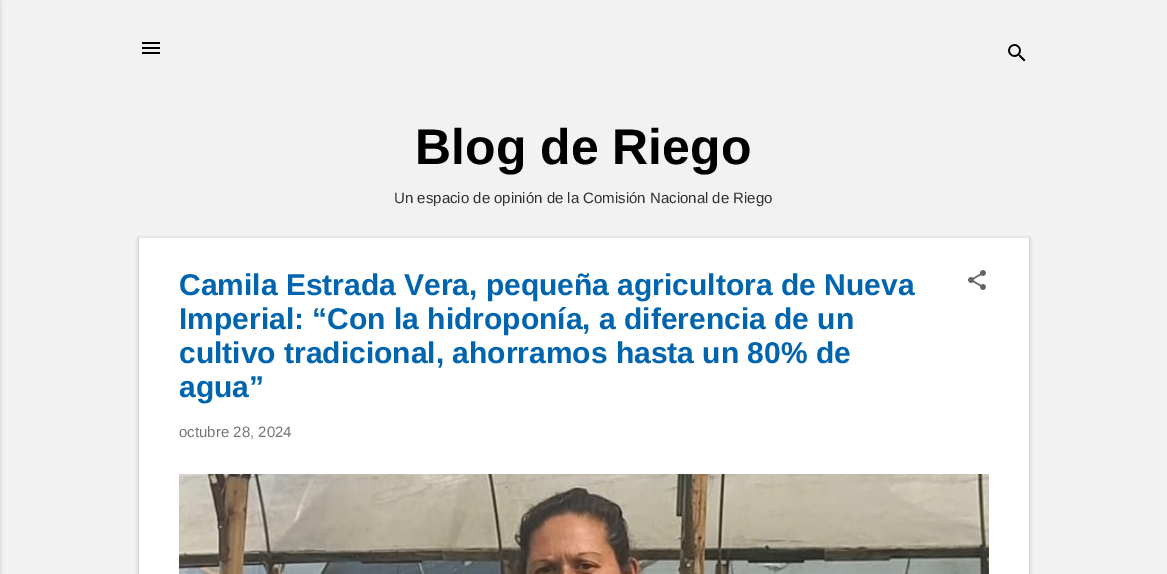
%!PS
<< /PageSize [1167 574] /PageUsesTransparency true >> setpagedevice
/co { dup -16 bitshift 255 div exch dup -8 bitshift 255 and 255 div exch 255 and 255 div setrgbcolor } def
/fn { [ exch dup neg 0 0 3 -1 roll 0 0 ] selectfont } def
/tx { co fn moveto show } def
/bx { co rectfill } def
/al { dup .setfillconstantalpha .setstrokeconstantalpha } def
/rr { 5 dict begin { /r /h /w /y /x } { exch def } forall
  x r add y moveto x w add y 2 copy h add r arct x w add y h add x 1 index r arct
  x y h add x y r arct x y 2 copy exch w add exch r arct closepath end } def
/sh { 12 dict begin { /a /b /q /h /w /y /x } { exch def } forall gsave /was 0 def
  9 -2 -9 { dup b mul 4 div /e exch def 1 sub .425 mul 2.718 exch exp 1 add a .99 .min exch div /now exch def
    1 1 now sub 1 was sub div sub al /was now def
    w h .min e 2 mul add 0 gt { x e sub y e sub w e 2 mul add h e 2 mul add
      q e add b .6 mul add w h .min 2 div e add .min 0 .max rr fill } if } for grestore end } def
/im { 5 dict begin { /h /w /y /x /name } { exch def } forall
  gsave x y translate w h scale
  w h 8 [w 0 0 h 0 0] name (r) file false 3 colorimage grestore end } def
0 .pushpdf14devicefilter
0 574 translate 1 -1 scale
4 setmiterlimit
0 0 1167 574 16#F2F2F2 bx
16#000000 co
-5 1 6 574 0 1.5 .1 sh
(media/1.raw) 142 42 18 12 im
(media/2.raw) 1008 44 18 18 im
139 239 890 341 0 2 .3 sh
139 238 890 336 16#FFFFFF bx
(media/3.raw) 968 270 18 20 im
(media/4.raw) 179 474 810 100 im
(Blog de Riego) 415 164 /LiberationSans-Bold 50 16#000000 tx
(Un espacio de opinión de la Comisión Nacional de Riego) 394 203 /LiberationSans-Regular 15 16#303030 tx
(Camila Estrada Vera, pequeña agricultora de Nueva) 179 295 /LiberationSans-Bold 30 16#0064AF tx
(Imperial: “Con la hidroponía, a diferencia de un) 179 329 /LiberationSans-Bold 30 16#0064AF tx
(cultivo tradicional, ahorramos hasta un 80% de) 179 363 /LiberationSans-Bold 30 16#0064AF tx
(agua”) 179 397 /LiberationSans-Bold 30 16#0064AF tx
(octubre 28, 2024) 179 437 /LiberationSans-Regular 15 16#767676 tx
.poppdf14devicefilter showpage
